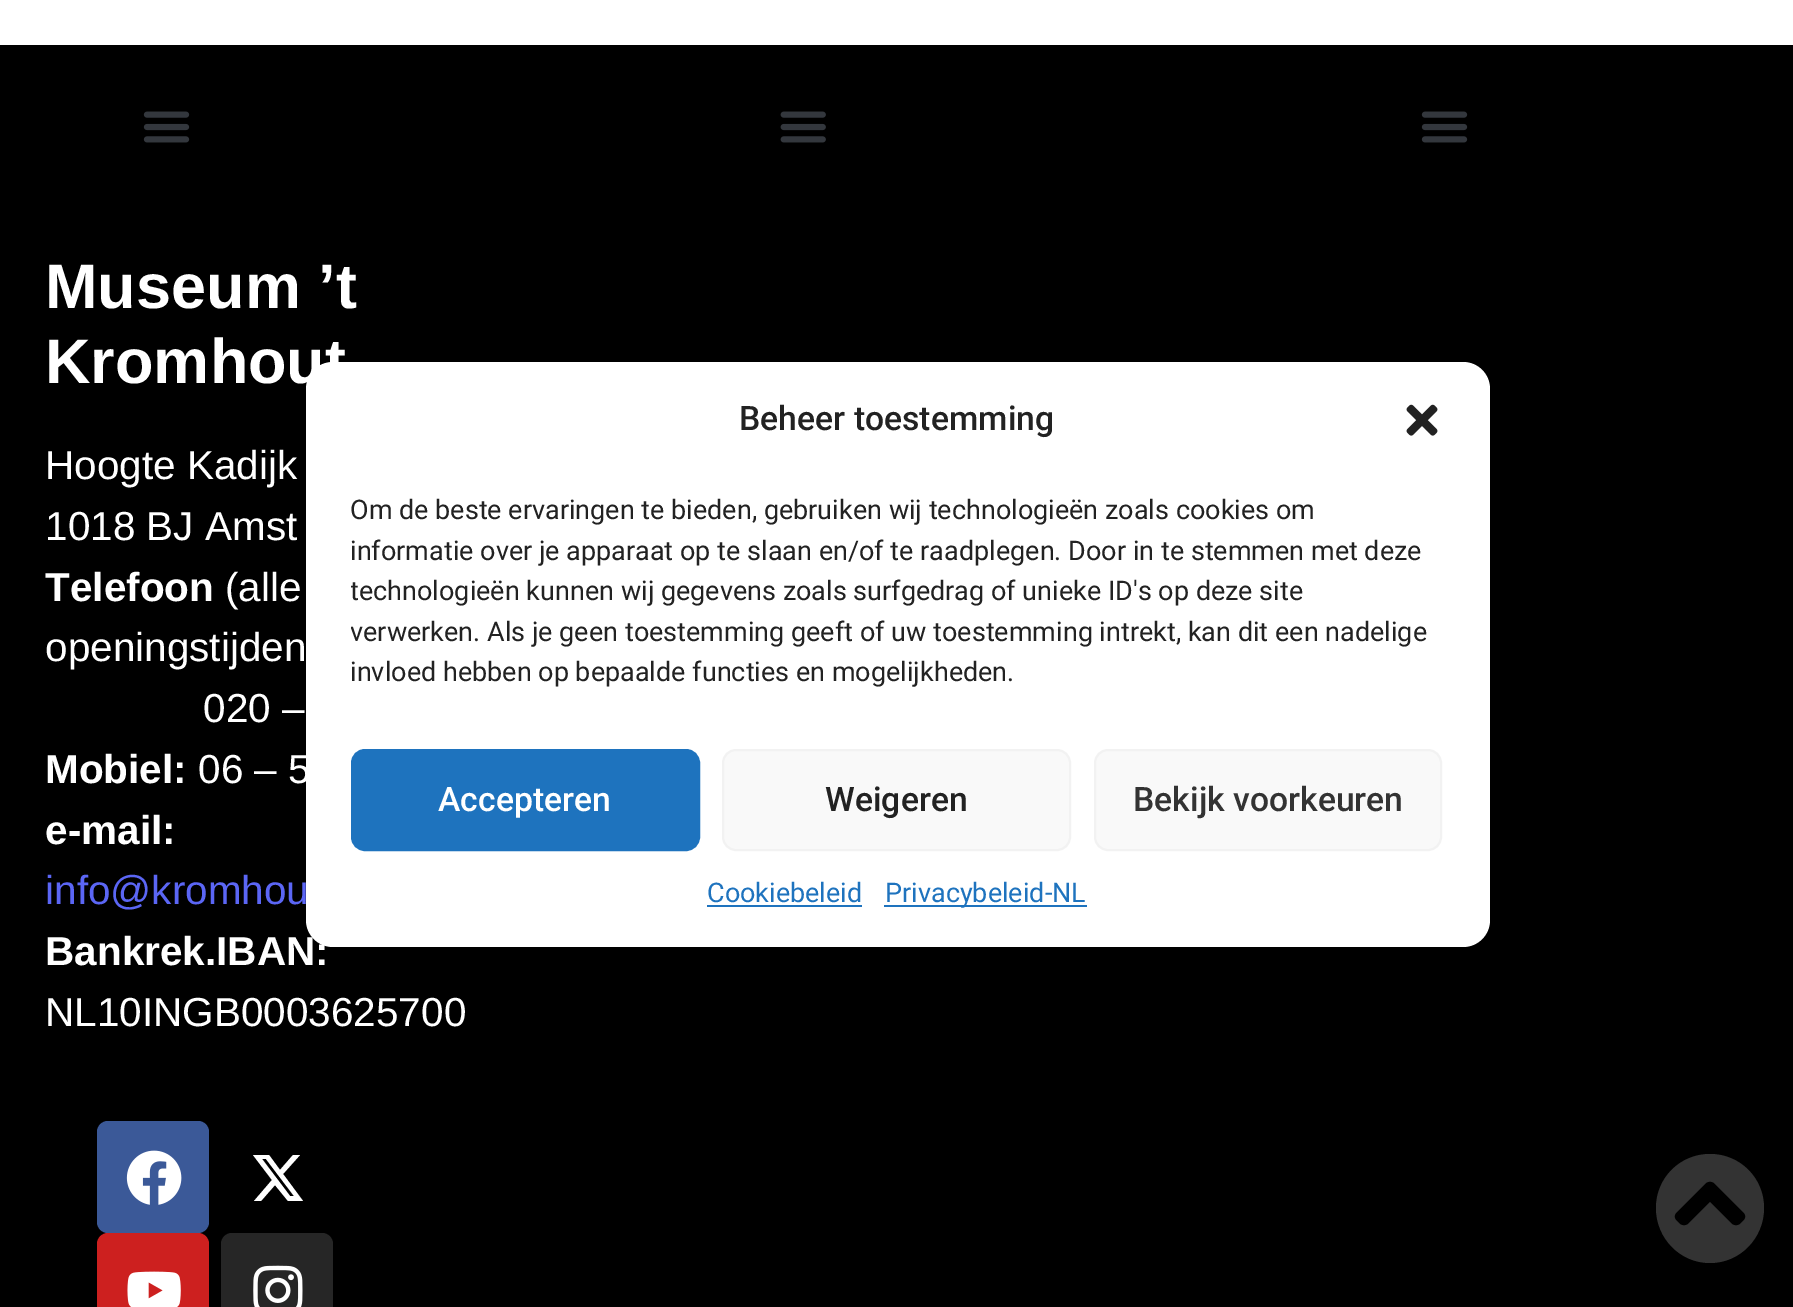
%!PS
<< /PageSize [1793 1307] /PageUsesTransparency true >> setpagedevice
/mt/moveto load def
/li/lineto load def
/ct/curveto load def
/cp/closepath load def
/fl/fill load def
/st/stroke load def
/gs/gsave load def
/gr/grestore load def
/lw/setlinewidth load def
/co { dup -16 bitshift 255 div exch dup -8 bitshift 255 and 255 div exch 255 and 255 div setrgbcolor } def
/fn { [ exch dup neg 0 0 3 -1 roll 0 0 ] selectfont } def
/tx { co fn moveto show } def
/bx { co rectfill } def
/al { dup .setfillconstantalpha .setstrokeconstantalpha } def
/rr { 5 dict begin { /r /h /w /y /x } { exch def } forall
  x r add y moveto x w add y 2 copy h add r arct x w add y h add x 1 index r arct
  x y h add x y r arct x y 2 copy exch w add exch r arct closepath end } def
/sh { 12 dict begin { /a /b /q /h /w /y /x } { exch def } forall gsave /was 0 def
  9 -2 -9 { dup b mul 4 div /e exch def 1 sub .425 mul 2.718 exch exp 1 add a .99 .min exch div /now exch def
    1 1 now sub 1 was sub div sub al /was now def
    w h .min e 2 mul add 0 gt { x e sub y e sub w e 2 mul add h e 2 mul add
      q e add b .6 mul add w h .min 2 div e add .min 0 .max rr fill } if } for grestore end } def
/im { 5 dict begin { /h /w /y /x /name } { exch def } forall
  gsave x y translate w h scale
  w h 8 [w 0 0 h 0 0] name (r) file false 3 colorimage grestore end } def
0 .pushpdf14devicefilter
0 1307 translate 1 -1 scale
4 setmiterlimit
0 0 1793 1307 16#FFFFFF bx
0 45 1793 1262 16#000000 bx
(media/1.raw) 143 111 47 32 im
(media/2.raw) 780 111 46 32 im
(media/1.raw) 1421 111 47 32 im
16#3B5998 co
97 1121 112 112 11 rr fl
(media/3.raw) 126 1150 56 55 im
16#FFFFFF co
293 1155 mt 300 1155 li 283 1174 li 303 1201 li 288 1201 li 275 1185 li 261 1201 li 254 1201 li 272 1180 li 253 1155 li 269 1155 li 280 1170 li cp 290 1196 mt 294 1196 li 266 1159 li 262 1159 li cp fl
16#CD201F co
97 1233 112 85 11 rr fl
(media/4.raw) 127 1271 54 36 im
16#262626 co
221 1233 112 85 11 rr fl
(media/5.raw) 253 1265 50 42 im
16#000000 co
306 376 1184 585 27 7 .23 sh
306 385 1184 585 27 22.5 .19 sh
16#333333 co
1656 1208 mt 1656 1178 1680 1154 1710 1154 ct 1740 1154 1764 1178 1764 1208 ct 1764 1238 1740 1263 1710 1263 ct 1680 1263 1656 1238 1656 1208 ct cp 1706 1183 mt 1676 1213 li 1674 1215 1674 1218 1676 1220 ct 1680 1224 li 1682 1226 1686 1226 1688 1224 ct 1710 1202 li 1732 1224 li 1734 1226 1738 1226 1740 1224 ct 1744 1220 li 1746 1218 1746 1215 1744 1213 ct 1714 1183 li 1712 1181 1708 1181 1706 1183 ct cp fl
(Museum ’t) 45 308 /LiberationSans-Bold 63 16#FFFFFF tx
(Kromhout) 45 383 /LiberationSans-Bold 63 16#FFFFFF tx
(Hoogte Kadijk) 45 479 /LiberationSans-Regular 40.5 16#FFFFFF tx
(1018 BJ Amst) 45 540 /LiberationSans-Regular 40.5 16#FFFFFF tx
(Telefoon) 45 601 /LiberationSans-Bold 40.5 16#FFFFFF tx
(\(alle) 225 601 /LiberationSans-Regular 40.5 16#FFFFFF tx
(openingstijden) 45 661 /LiberationSans-Regular 40.5 16#FFFFFF tx
(020 –) 203 722 /LiberationSans-Regular 40.5 16#FFFFFF tx
(Mobiel:) 45 783 /LiberationSans-Bold 40.5 16#FFFFFF tx
(06 – 5) 198 783 /LiberationSans-Regular 40.5 16#FFFFFF tx
(e-mail:) 45 844 /LiberationSans-Bold 40.5 16#FFFFFF tx
(info@kromhou) 45 904 /LiberationSans-Regular 40.5 16#5B66F5 tx
(Bankrek.IBAN:) 45 965 /LiberationSans-Bold 40.5 16#FFFFFF tx
(NL10INGB0003625700) 45 1026 /LiberationSans-Regular 40.5 16#FFFFFF tx
306 362 1184 585 27 rr fl
(Beheer toestemming) 739 430 /Roboto-Medium 33.75 16#222222 tx
(media/6.raw) 1406 404 32 32 im
(Om de beste ervaringen te bieden, gebruiken wij technologieën zoals cookies om) 350 519 /Roboto-Regular 27 16#222222 tx
(informatie over je apparaat op te slaan en/of te raadplegen. Door in te stemmen met deze) 350 560 /Roboto-Regular 27 16#222222 tx
gs
351 491 1094 213 rectclip
(technologieën kunnen wij gegevens zoals surfgedrag of unieke ID's op deze site) 350 600 /Roboto-Regular 27 16#222222 tx
(verwerken. Als je geen toestemming geeft of uw toestemming intrekt, kan dit een nadelige) 350 641 /Roboto-Regular 27 16#222222 tx
gr
(invloed hebben op bepaalde functies en mogelijkheden.) 350 681 /Roboto-Regular 27 16#222222 tx
16#1E73BE co
352 750 347 100 13 rr gs fl gr
2 lw
st
(Accepteren) 438 811 /Roboto-Medium 33.75 16#FFFFFF tx
16#F9F9F9 co
723 750 347 100 13 rr gs fl gr
16#F2F2F2 co
st
(Weigeren) 825 811 /Roboto-Medium 33.75 16#222222 tx
16#F9F9F9 co
1095 750 346 100 13 rr gs fl gr
16#F2F2F2 co
st
(Bekijk voorkeuren) 1133 811 /Roboto-Medium 33.75 16#333333 tx
(Cookiebeleid) 707 902 /Roboto-Regular 27 16#1E73BE tx
707 905 155 2 16#1E73BE bx
884 905 203 2 16#1E73BE bx
(Privacybeleid-NL) 885 902 /Roboto-Regular 27 16#1E73BE tx
.poppdf14devicefilter showpage
